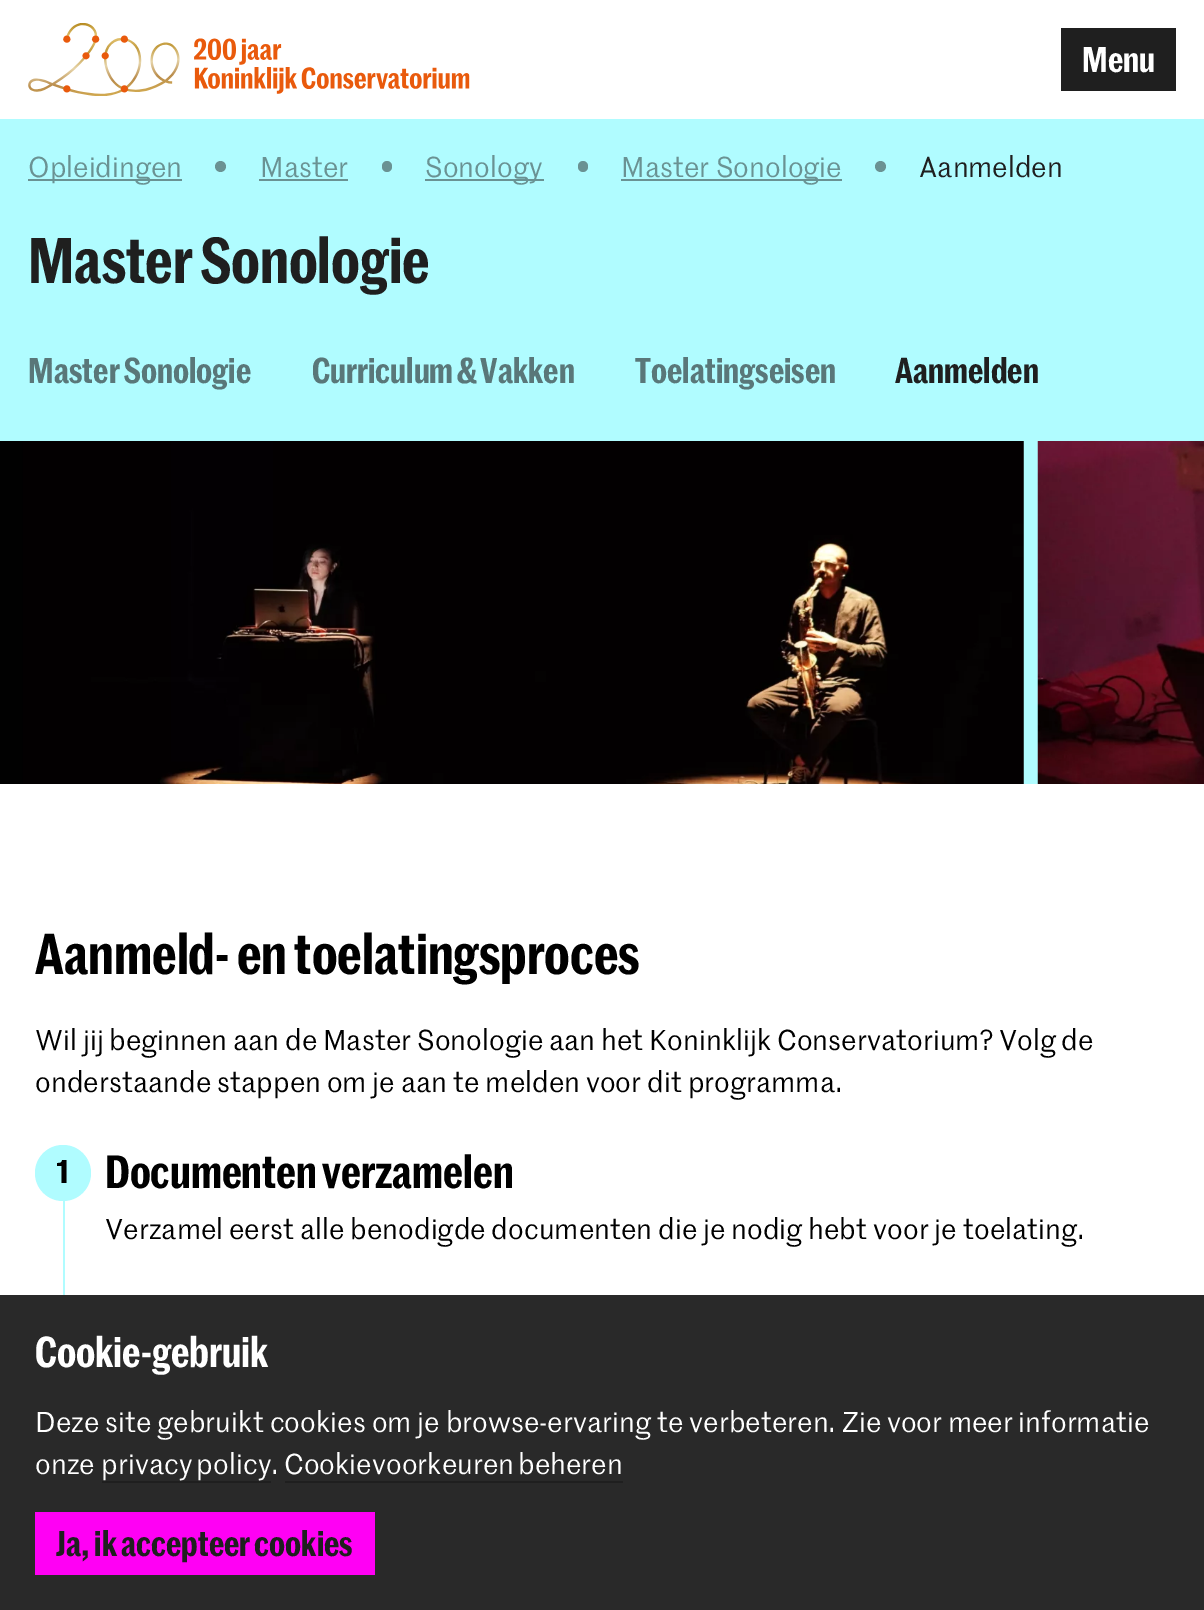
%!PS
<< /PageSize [1204 1610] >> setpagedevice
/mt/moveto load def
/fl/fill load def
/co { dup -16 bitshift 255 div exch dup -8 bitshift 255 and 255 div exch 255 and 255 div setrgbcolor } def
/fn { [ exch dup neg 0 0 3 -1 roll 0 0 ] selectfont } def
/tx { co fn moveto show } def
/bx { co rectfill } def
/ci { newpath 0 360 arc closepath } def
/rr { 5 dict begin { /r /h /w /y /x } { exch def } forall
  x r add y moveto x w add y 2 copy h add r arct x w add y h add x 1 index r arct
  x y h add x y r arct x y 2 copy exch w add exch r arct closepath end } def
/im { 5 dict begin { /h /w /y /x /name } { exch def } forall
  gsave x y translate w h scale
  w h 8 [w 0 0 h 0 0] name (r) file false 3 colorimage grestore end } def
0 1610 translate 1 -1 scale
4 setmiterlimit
0 0 1204 1610 16#FFFFFF bx
(media/1.raw) 28 23 442 73 im
1061 28 115 63 16#1F1F1F bx
0 119 1204 665 16#B0FCFF bx
28 179 154 2 16#6A9293 bx
220.5 166.5 5.5 ci fl
259 179 89 2 16#6A9293 bx
382 161 10 11 5 rr fl
425 179 119 2 16#6A9293 bx
578 161 10 11 5 rr fl
621 179 221 2 16#6A9293 bx
880.5 166.5 5.5 ci fl
(media/2.raw) 0 441 1024 343 im
(media/3.raw) 1037 441 167 343 im
63 1200 2 95 16#B0FCFF bx
63 1173 28 ci fl
0 1295 1204 315 16#292929 bx
102 1481 169 2 16#1F1F1F bx
285 1481 338 2 16#1F1F1F bx
35 1512 340 63 16#FF00F4 bx
(Menu) 1082 72 /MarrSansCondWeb-SemiBold 35 16#FFFFFF tx
(Opleidingen) 28 177 /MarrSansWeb-Regular 28 16#6A9293 tx
(Master) 260 177 /MarrSansWeb-Regular 28 16#6A9293 tx
(Sonology) 425 177 /MarrSansWeb-Regular 28 16#6A9293 tx
(Master Sonologie) 621 177 /MarrSansWeb-Regular 28 16#6A9293 tx
(Aanmelden) 919 177 /MarrSansWeb-Regular 28 16#1F1F1F tx
(Master Sonologie) 28 283 /MarrSansCondWeb-SemiBold 63 16#1F1F1F tx
(Master Sonologie) 28 383 /MarrSansCondWeb-SemiBold 35 16#597779 tx
312 383 mt -1 0 32 (Curriculum & Vakken) widthshow
(Toelatingseisen) 635 383 /MarrSansCondWeb-SemiBold 35 16#597779 tx
(Aanmelden) 895 383 /MarrSansCondWeb-SemiBold 35 16#1F1F1F tx
(Aanmeld- en toelatingsproces) 35 974 /MarrSansCondWeb-SemiBold 56 16#000000 tx
/MarrSansWeb-Regular 28 fn
35 1050 mt -.4 0 32 (Wil jij beginnen aan de Master Sonologie aan het Koninklijk Conservatorium? Volg de) widthshow
35 1092 mt -.25 0 32 (onderstaande stappen om je aan te melden voor dit programma.) widthshow
(1) 56 1183 /MarrSansWeb-SemiBold 32 16#000000 tx
/MarrSansCondWeb-SemiBold 45.5 fn
105 1188 mt -1 0 32 (Documenten verzamelen) widthshow
/MarrSansWeb-Regular 28 fn
105 1239 mt -.25 0 32 (Verzamel eerst alle benodigde documenten die je nodig hebt voor je toelating.) widthshow
(Cookie-gebruik) 35 1367 /MarrSansCondWeb-SemiBold 42 16#FFFFFF tx
/MarrSansWeb-Regular 28 fn
35 1432 mt -.25 0 32 (Deze site gebruikt cookies om je browse-ervaring te verbeteren.) widthshow
842 1432 mt -.5 0 32 (Zie voor meer informatie) widthshow
(onze) 35 1474 /MarrSansWeb-Regular 28 16#FFFFFF tx
101 1474 mt -2 0 32 (privacy policy) widthshow
(.) 271 1474 /MarrSansWeb-Regular 28 16#FFFFFF tx
284 1474 mt -2 0 32 (Cookievoorkeuren beheren) widthshow
/MarrSansCondWeb-SemiBold 35 fn
16#1F1F1F co
56 1556 mt -.5 0 32 (Ja, ik accepteer cookies) widthshow
showpage
